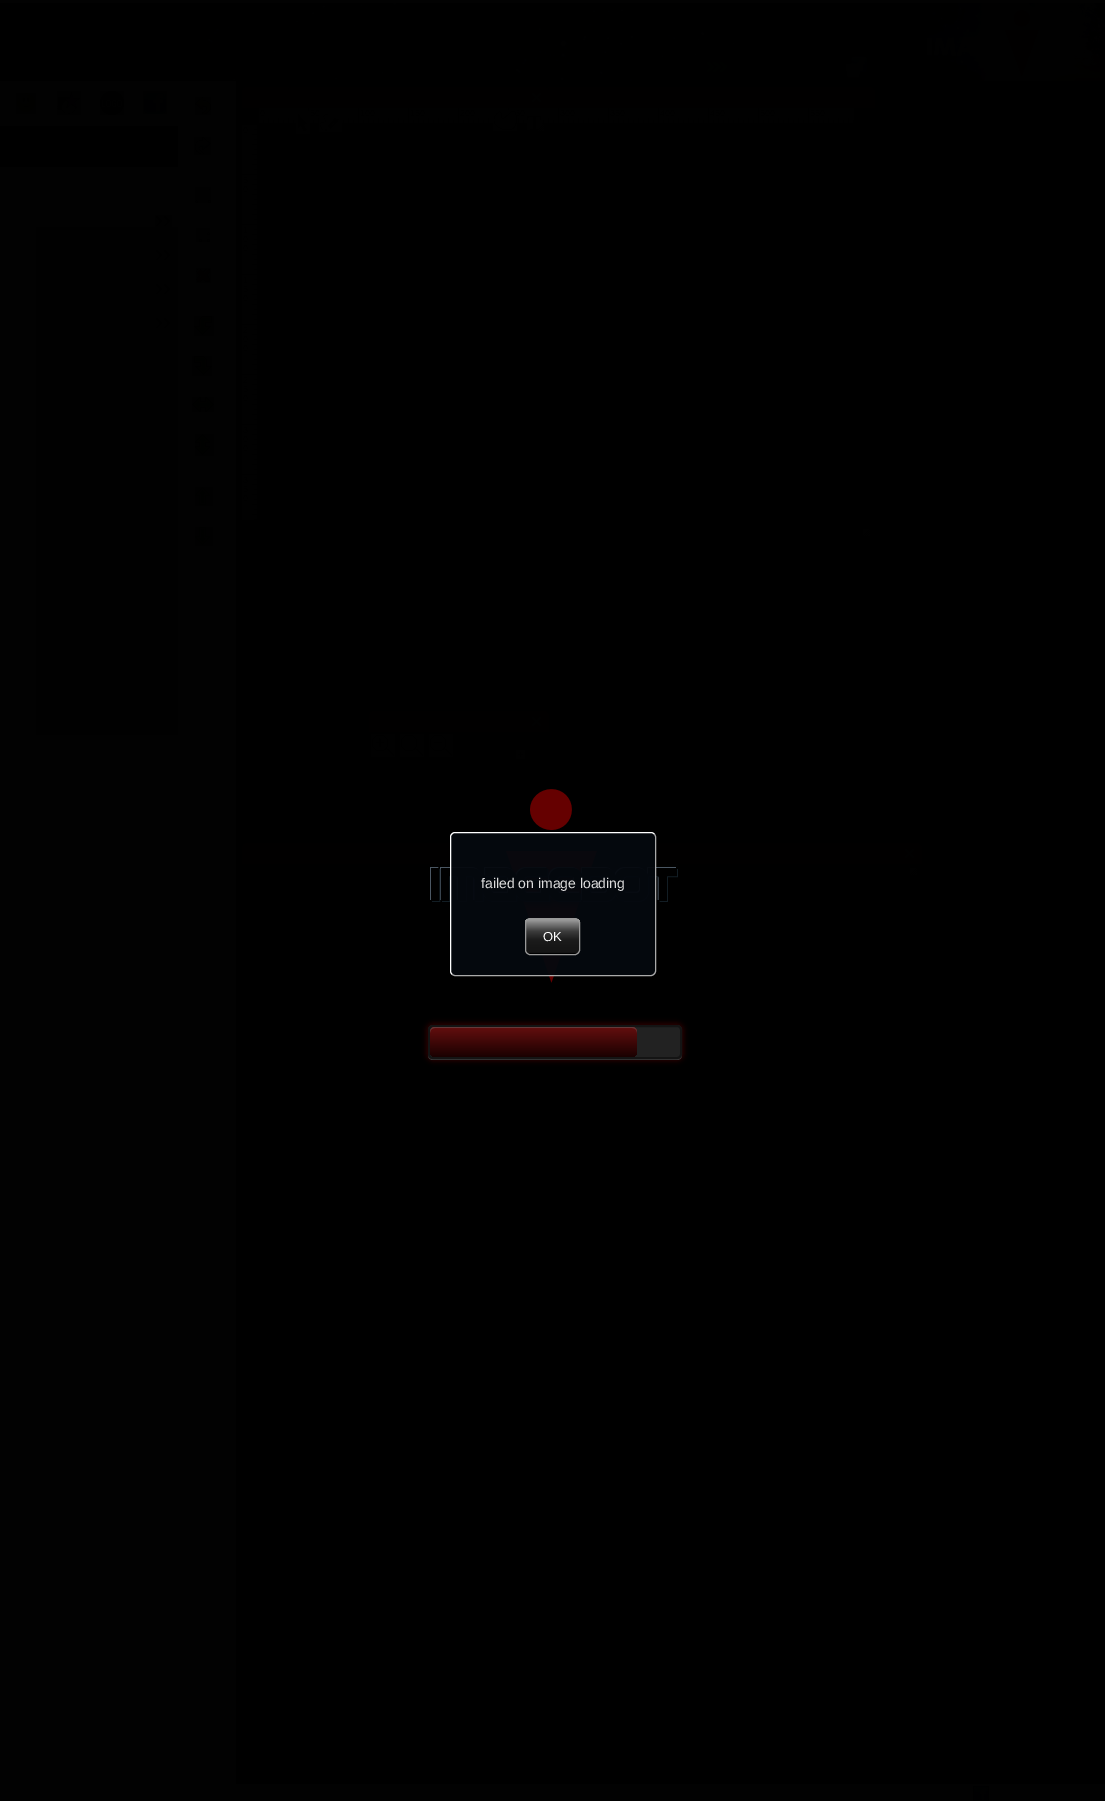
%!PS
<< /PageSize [1105 1801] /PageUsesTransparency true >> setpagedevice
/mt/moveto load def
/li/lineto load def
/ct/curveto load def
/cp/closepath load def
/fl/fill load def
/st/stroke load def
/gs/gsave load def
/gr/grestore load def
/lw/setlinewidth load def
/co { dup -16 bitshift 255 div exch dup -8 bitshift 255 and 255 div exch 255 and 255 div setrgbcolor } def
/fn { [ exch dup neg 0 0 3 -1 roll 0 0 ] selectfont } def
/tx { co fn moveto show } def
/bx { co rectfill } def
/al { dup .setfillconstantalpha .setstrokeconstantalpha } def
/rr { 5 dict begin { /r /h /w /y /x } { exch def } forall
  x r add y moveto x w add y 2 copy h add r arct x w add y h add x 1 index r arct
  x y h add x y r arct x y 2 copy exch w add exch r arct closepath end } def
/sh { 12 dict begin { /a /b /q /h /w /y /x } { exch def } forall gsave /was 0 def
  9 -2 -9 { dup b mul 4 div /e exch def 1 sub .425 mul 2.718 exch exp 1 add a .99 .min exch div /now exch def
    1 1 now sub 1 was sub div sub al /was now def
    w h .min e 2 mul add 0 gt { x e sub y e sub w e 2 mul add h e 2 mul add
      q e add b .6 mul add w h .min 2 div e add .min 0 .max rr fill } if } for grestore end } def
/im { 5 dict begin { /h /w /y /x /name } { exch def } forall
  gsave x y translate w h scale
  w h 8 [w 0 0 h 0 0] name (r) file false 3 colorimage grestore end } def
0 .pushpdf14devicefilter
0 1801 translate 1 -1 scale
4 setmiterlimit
0 0 1105 1801 16#020202 bx
(media/24.raw) 236 81 869 1703 im
(media/41.raw) 242 843 680 21 im
(media/1.raw) 430 789 248 194 im
gs
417 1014 mt 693 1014 li 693 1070 li 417 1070 li cp 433 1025 mt 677 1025 li 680 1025 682 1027 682 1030 ct 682 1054 li 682 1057 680 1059 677 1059 ct 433 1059 li 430 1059 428 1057 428 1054 ct 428 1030 li 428 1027 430 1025 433 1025 ct cp eoclip newpath
16#660000 co
426 1023 258 38 7 2.5 .4 sh
gr
0.99 al
16#3D3D3D co
428 1054 mt 428 1055 li 428 1058 430 1060 433 1060 ct 677 1060 li 680 1060 682 1058 682 1055 ct 682 1054 li 682 1057 680 1059 677 1059 ct 433 1059 li 430 1059 428 1057 428 1054 ct cp fl
16#222222 co
428 1025 254 34 5 rr fl
16#141414 co
2 lw
429 1026 252 32 4 rr st
1 al
gs 430 1027 207 30 5 rr clip newpath
<< /ShadingType 2 /ColorSpace /DeviceRGB /Coords [534 1027 534 1057] /Extend [true true] /Function << /FunctionType 2 /Domain [0 1] /C0 [.392 .055 .055] /C1 [.102 .004 .004] /N 1 >> >> shfill gr
0.49 al
16#666666 co
435 1028 mt 432 1028 430 1030 430 1033 ct 430 1032 li 430 1029 432 1027 435 1027 ct 632 1027 li 635 1027 637 1029 637 1032 ct 637 1033 li 637 1030 635 1028 632 1028 ct cp fl
1 al
(media/2.raw) 0 3 878 78 im
(media/3.raw) 745 3 360 78 im
(media/4.raw) 706 61 22 12 im
(media/5.raw) 846 56 21 22 im
(media/6.raw) 16 93 20 21 im
(media/7.raw) 57 91 24 24 im
(media/8.raw) 100 91 24 24 im
(media/9.raw) 143 91 24 23 im
(media/10.raw) 0 126 178 41 im
(media/12.raw) 36 227 142 508 im
(media/11.raw) 155 215 17 13 im
(media/11.raw) 155 249 17 13 im
(media/11.raw) 155 283 17 13 im
(media/11.raw) 155 317 17 13 im
(media/13.raw) 195 97 16 18 im
(media/14.raw) 194 137 17 18 im
(media/15.raw) 195 187 16 16 im
(media/16.raw) 196 228 14 14 im
(media/17.raw) 196 268 15 15 im
(media/18.raw) 194 316 20 20 im
(media/19.raw) 192 356 20 20 im
(media/20.raw) 192 397 22 15 im
(media/21.raw) 195 434 19 22 im
(media/22.raw) 195 487 18 19 im
(media/23.raw) 195 527 18 19 im
(media/25.raw) 242 87 633 21 im
(media/26.raw) 258 108 596 15 im
(media/27.raw) 242 124 15 396 im
(media/28.raw) 863 529 7 7 im
(media/29.raw) 288 87 261 14 im
(media/30.raw) 531 92 10 10 im
(media/31.raw) 296 111 14 23 im
(media/32.raw) 319 112 23 20 im
(media/33.raw) 493 110 24 21 im
(media/34.raw) 527 116 15 14 im
(media/35.raw) 537 124 7 7 im
(media/36.raw) 369 711 180 21 im
(media/30.raw) 531 716 10 10 im
(media/37.raw) 371 734 24 23 im
(media/38.raw) 400 734 24 23 im
(media/39.raw) 429 734 24 23 im
(media/40.raw) 515 749 11 11 im
(media/30.raw) 904 848 10 10 im
(media/28.raw) 910 868 7 7 im
0.95 al
16#04080E co
450 832 206 144 5 rr fl
1 al
16#AAAAAA co
1 lw
654 834 mt 655 834.5 655.5 836 655.5 837 ct 655.5 971 li 655.5 972 655 973.5 654 974 ct 653.5 975 652 975.5 651 975.5 ct 455 975.5 li 454 975.5 452.5 975 452 974 ct st
16#FFFFFF co
452 974 mt 451 973.5 450.5 972 450.5 971 ct 450.5 837 li 450.5 836 451 834.5 452 834 ct 452.5 833 454 832.5 455 832.5 ct 651 832.5 li 652 832.5 653.5 833 654 834 ct st
gs
525 918 55 37 5 rr clip newpath
gs 525 919 mt 580 919 li 580 954 li 525 954 li cp clip newpath
<< /ShadingType 2 /ColorSpace /DeviceRGB /Coords [553 919 553 954] /Extend [true true] /Function << /FunctionType 3 /Domain [0 1] /Functions [<< /FunctionType 2 /Domain [0 1] /C0 [.6 .6 .6] /C1 [.6 .6 .6] /N 1 >> << /FunctionType 2 /Domain [0 1] /C0 [.6 .6 .6] /C1 [.235 .235 .235] /N 1 >> << /FunctionType 2 /Domain [0 1] /C0 [.235 .235 .235] /C1 [.106 .106 .106] /N 1 >> << /FunctionType 2 /Domain [0 1] /C0 [.106 .106 .106] /C1 [.082 .082 .082] /N 1 >> << /FunctionType 2 /Domain [0 1] /C0 [.082 .082 .082] /C1 [0 0 0] /N 1 >>] /Bounds [.03 .35 .6 .95] /Encode [0 1 0 1 0 1 0 1 0 1] >> >> shfill gr
gr
16#999999 co
525.5 918.5 54 36 4.5 rr st
(media/42.raw) 973 1786 16 15 im
(failed on image loading) 481 888 /LiberationSans-Regular 14 16#DDDDDD tx
(OK) 543 941 /LiberationSans-Regular 13 16#FFFFFF tx
.poppdf14devicefilter showpage
